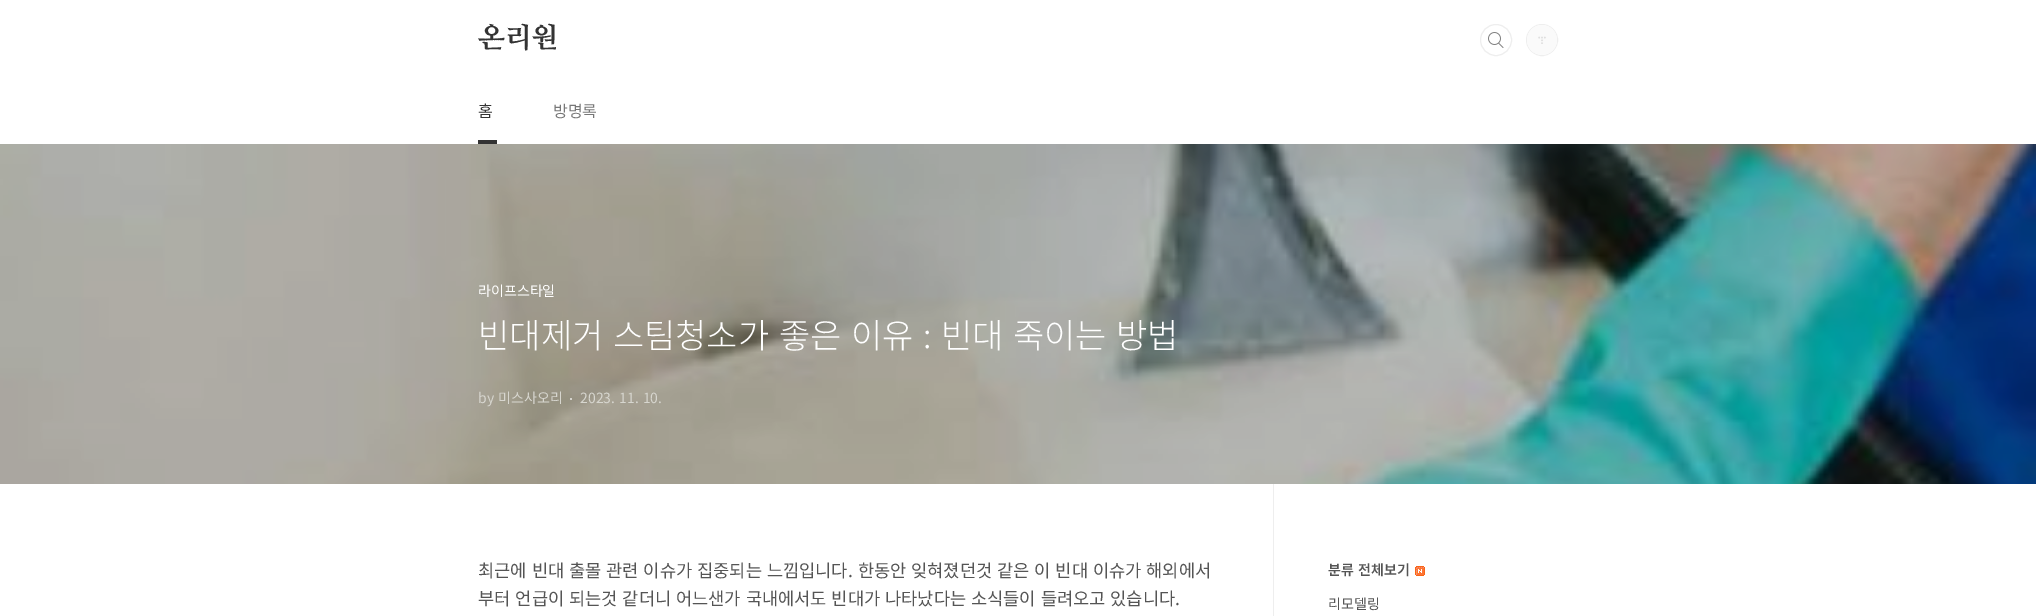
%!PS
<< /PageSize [2036 616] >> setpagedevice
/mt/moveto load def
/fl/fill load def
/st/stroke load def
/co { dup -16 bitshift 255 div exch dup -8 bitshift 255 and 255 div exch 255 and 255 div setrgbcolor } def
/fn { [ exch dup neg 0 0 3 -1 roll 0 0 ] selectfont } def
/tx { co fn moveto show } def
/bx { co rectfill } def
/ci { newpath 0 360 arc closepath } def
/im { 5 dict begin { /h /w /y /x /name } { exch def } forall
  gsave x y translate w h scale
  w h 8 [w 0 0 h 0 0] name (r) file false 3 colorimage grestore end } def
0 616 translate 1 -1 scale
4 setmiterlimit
0 0 2036 616 16#FFFFFF bx
16#EEEEEE co
1496 40 14.5 ci st
16#FFFFFF co
1496 40 16 ci fl
(media/1.raw) 1488 32 16 16 im
16#EEEEEE co
1496 40 15.5 ci st
1542 40 15.5 ci st
(media/2.raw) 1527 25 30 30 im
478 140 19 4 16#333333 bx
(media/3.raw) 0 144 2036 340 im
570 398 2 2 16#D5D3CD bx
1273 484 1 132 16#EEEEEE bx
(media/4.raw) 1415 566 10 10 im
(온리원) 478 47 /NanumMyeongjo-ExtraBold 28 16#333333 tx
(홈) 478 117 /NotoSansKR-Regular 16 16#333333 tx
(방명록) 553 117 /NotoSansKR-Regular 16 16#777777 tx
(라이프스타일) 478 296 /NotoSansKR-Regular 14 16#FFFFFF tx
/NotoSansKR-Light 34 fn
478 348 mt 2 0 32 (빈대제거 스팀청소가 좋은 이유 : 빈대 죽이는 방법) widthshow
/NotoSansKR-Regular 14 fn
16#D7D6CF co
478 403 mt 1 0 32 (by 미스사오리) widthshow
580 403 mt 1 0 32 (2023. 11. 10.) widthshow
/NotoSansKR-Regular 17.6 fn
16#555555 co
478 577 mt 1 0 32 (최근에 빈대 출몰 관련 이슈가 집중되는 느낌입니다. 한동안 잊혀졌던것 같은 이 빈대 이슈가 해외에서) widthshow
478 605 mt 1 0 32 (부터 언급이 되는것 같더니 어느샌가 국내에서도 빈대가 나타났다는 소식들이 들려오고 있습니다.) widthshow
/NotoSansKR-SemiBold 14 fn
1328 575 mt 1 0 32 (분류 전체보기) widthshow
(리모델링) 1328 609 /NotoSansKR-Regular 14 16#555555 tx
showpage
